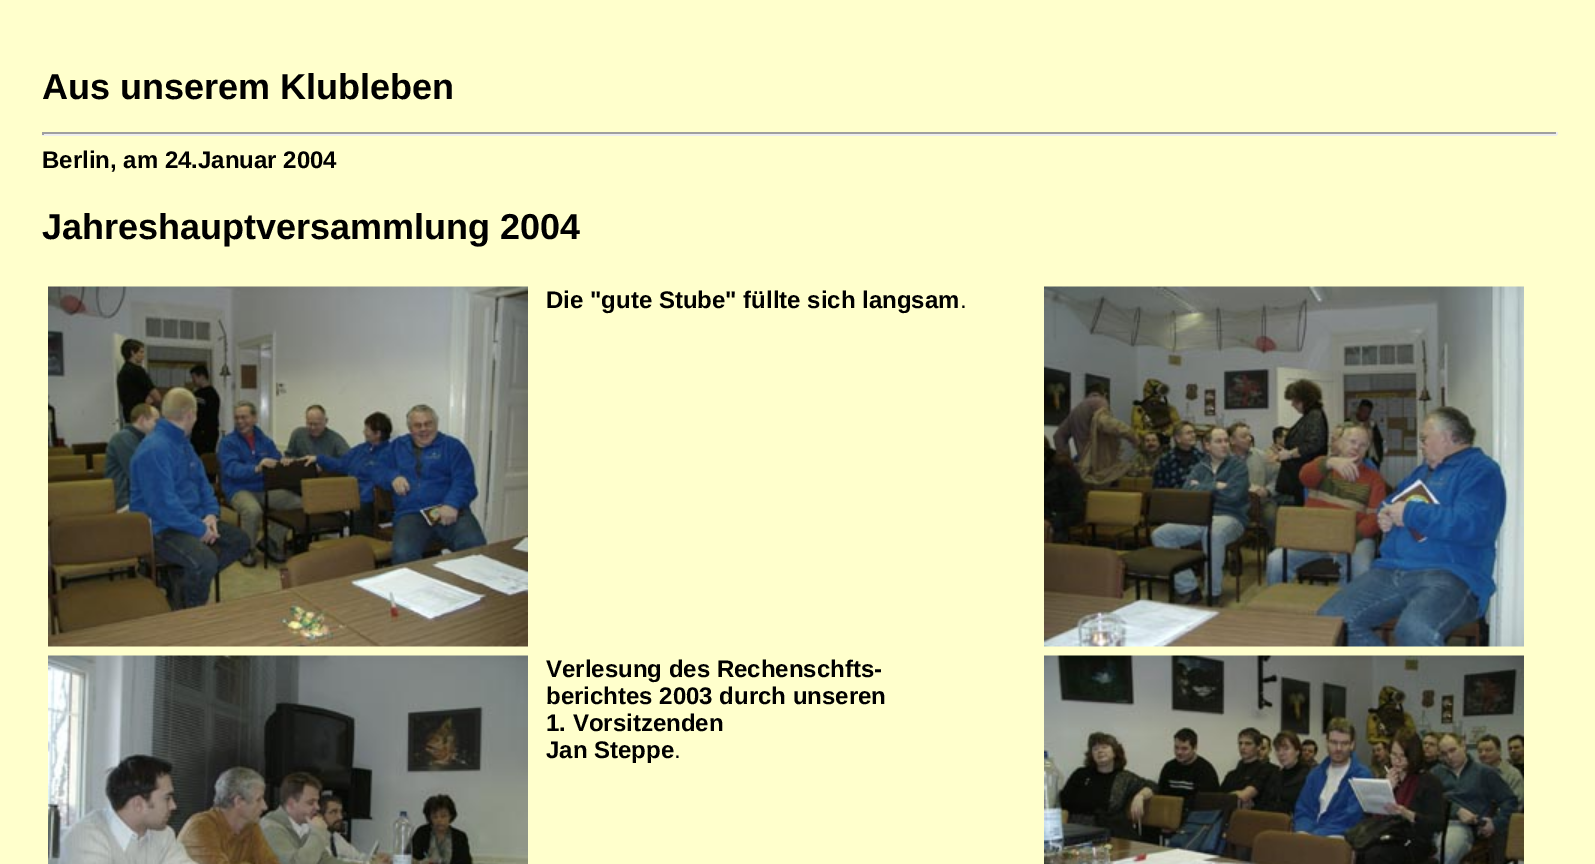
%!PS
<< /PageSize [1595 864] >> setpagedevice
/co { dup -16 bitshift 255 div exch dup -8 bitshift 255 and 255 div exch 255 and 255 div setrgbcolor } def
/fn { [ exch dup neg 0 0 3 -1 roll 0 0 ] selectfont } def
/tx { co fn moveto show } def
/bx { co rectfill } def
/im { 5 dict begin { /h /w /y /x /name } { exch def } forall
  gsave x y translate w h scale
  w h 8 [w 0 0 h 0 0] name (r) file false 3 colorimage grestore end } def
0 864 translate 1 -1 scale
4 setmiterlimit
0 0 1595 864 16#FFFFCC bx
42 132 1515 2 16#9F9F9F bx
1556 132 2 3 16#EEEEEE bx
42 134 1515 2 16#EEEEEE bx
42 132 2 3 16#9F9F9F bx
(media/1.raw) 48 286 480 361 im
(media/2.raw) 1044 286 480 361 im
(media/3.raw) 48 655 480 209 im
(media/4.raw) 1044 655 480 209 im
(Aus unserem Klubleben) 42 99 /LiberationSans-Bold 36 16#000000 tx
(Berlin, am 24.Januar 2004) 42 168 /LiberationSans-Bold 24 16#000000 tx
(Jahreshauptversammlung 2004) 42 239 /LiberationSans-Bold 36 16#000000 tx
(Die "gute Stube" füllte sich langsam) 546 308 /LiberationSans-Bold 24 16#000000 tx
(.) 960 308 /LiberationSans-Regular 24 16#000000 tx
(Verlesung des Rechenschfts-) 546 677 /LiberationSans-Bold 24 16#000000 tx
(berichtes 2003 durch unseren) 546 704 /LiberationSans-Bold 24 16#000000 tx
(1. Vorsitzenden) 546 731 /LiberationSans-Bold 24 16#000000 tx
(Jan Steppe) 546 758 /LiberationSans-Bold 24 16#000000 tx
(.) 674 758 /LiberationSans-Regular 24 16#000000 tx
showpage
